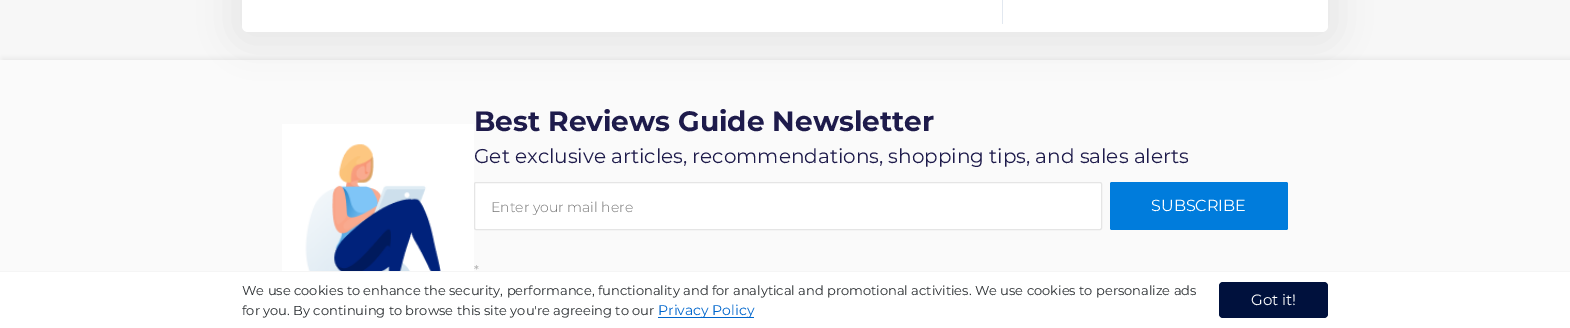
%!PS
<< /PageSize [1570 328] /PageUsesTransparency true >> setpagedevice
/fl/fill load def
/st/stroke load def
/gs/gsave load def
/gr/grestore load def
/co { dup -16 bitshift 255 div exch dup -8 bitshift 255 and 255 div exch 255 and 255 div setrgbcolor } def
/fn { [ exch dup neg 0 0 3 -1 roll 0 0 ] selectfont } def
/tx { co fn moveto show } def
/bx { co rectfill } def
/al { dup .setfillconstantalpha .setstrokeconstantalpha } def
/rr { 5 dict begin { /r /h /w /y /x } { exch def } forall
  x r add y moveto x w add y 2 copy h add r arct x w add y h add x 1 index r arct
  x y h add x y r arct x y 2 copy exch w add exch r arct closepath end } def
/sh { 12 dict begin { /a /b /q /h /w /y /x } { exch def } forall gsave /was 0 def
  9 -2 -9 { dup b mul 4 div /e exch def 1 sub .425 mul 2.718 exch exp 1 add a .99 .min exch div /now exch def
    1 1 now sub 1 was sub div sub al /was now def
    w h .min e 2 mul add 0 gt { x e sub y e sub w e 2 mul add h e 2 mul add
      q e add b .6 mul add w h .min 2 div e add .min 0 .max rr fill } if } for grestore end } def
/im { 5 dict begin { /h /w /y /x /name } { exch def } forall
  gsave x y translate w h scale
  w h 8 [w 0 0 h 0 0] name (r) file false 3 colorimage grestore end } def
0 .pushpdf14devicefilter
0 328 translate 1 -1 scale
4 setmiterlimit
0 0 1570 328 16#F7F7F7 bx
16#E9E9E9 co
2 58 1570 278 0 2.5 1 sh
0 60 1570 211 16#FAFAFA bx
16#000000 co
227 -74 1116 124 21 17.5 .05 sh
16#FFFFFF co
242 -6 1086 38 6 rr fl
1002 0 1 24 16#E2E8F0 bx
(media/1.raw) 282 124 192 147 im
16#FFFFFF co
474.5 182.5 627 47 1.5 rr gs fl gr
16#E5E5E5 co
st
16#007CDC co
1110 182 178 48 2 rr fl
0 272 1570 56 16#FFFFFF bx
0 271 1570 1 16#F5F5F5 bx
658 317 96 1 16#0066CC bx
16#00113D co
1219 282 109 36 4 rr fl
(Best Reviews Guide Newsletter) 474 131 /Montserrat-Bold 28 16#1E1B4B tx
(Get exclusive articles, recommendations, shopping tips, and sales alerts) 474 163 /Montserrat-Regular 20 16#1E1B4B tx
(Enter your mail here) 491 212 /Montserrat-Light 14 16#737373 tx
(SUBSCRIBE) 1151 211 /Montserrat-Regular 16 16#FFFFFF tx
(*) 474 274 /Montserrat-Medium 12 16#B4B4B4 tx
(We use cookies to enhance the security, performance, functionality and for analytical and promotional activities. We use cookies to personalize ads) 242 295 /Montserrat-Regular 13 16#282C2F tx
(for you. By continuing to browse this site you're agreeing to our) 242 315 /Montserrat-Regular 13 16#282C2F tx
(Privacy Policy) 658 315 /Montserrat-Regular 14 16#0066CC tx
(Got it!) 1251 305 /Montserrat-Regular 15 16#FFFFFF tx
.poppdf14devicefilter showpage
